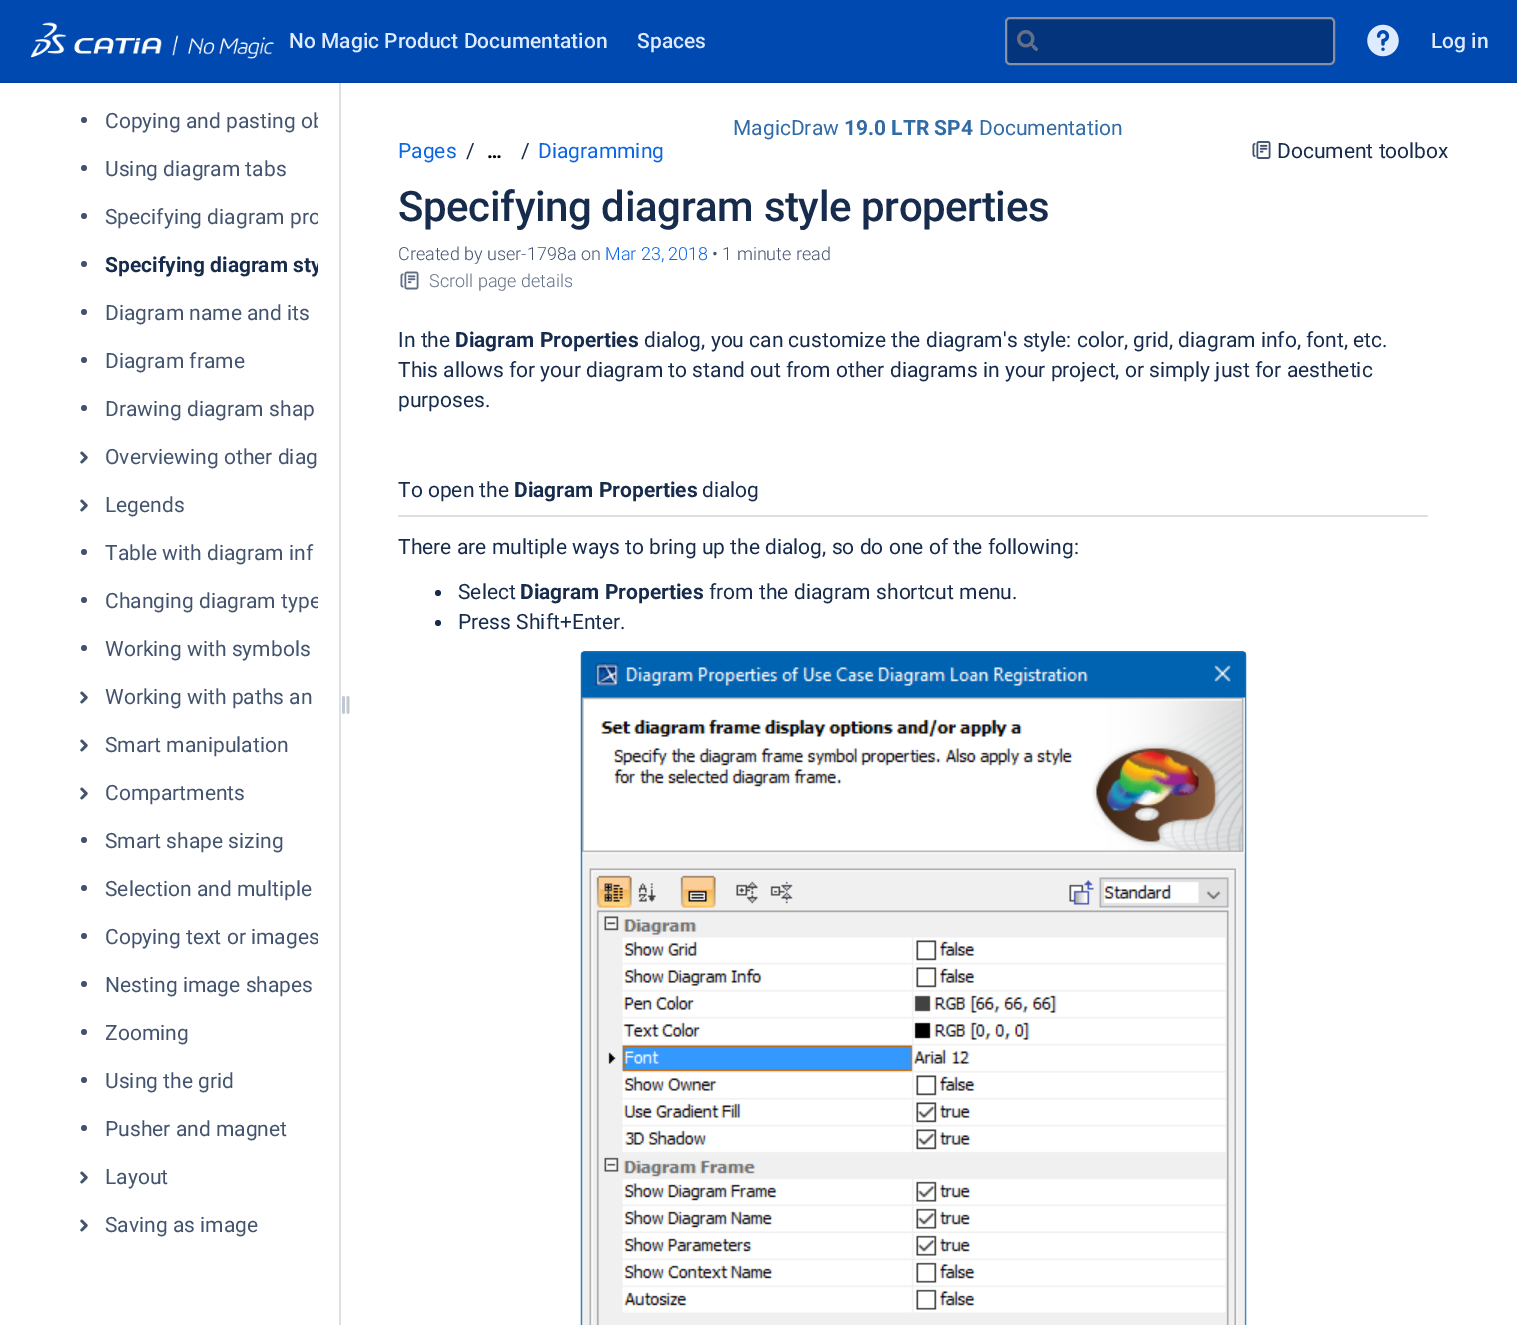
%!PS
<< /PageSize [1517 1325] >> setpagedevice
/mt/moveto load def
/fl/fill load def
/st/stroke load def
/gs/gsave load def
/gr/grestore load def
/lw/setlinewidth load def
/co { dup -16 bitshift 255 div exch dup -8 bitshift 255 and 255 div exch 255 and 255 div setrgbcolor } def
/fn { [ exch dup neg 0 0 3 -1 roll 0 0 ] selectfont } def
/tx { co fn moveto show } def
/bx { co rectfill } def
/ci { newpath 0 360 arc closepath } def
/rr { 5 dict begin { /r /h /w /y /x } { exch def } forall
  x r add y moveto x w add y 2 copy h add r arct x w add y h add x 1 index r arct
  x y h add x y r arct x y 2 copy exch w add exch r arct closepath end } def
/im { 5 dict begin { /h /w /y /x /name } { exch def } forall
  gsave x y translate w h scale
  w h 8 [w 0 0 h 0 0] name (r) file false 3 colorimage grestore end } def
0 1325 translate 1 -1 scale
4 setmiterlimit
0 0 1517 1325 16#FFFFFF bx
0 0 1517 81 16#0049B0 bx
0 81 1517 2 16#0143A1 bx
(media/1.raw) 30 22 244 37 im
16#04347B co
1006 18 328 46 4 rr gs fl gr
16#8590A2 co
2 lw
st
(media/2.raw) 1017 30 21 21 im
(media/3.raw) 1367 24 32 33 im
16#44546F co
84 120 3 ci fl
84 168 3 ci fl
84 216 3 ci fl
84 264 3 ci fl
84 312 3 ci fl
84 360 3 ci fl
84 408 3 ci fl
(media/4.raw) 80 451 8 13 im
(media/4.raw) 80 499 8 13 im
84 552 3 ci fl
84 600 3 ci fl
84 648 3 ci fl
(media/4.raw) 80 691 8 13 im
(media/4.raw) 80 739 8 13 im
(media/4.raw) 80 787 8 13 im
84 840 3 ci fl
84 888 3 ci fl
84 936 3 ci fl
84 984 3 ci fl
84 1032 3 ci fl
84 1080 3 ci fl
84 1128 3 ci fl
(media/4.raw) 80 1171 8 13 im
(media/4.raw) 80 1219 8 13 im
(media/5.raw) 342 696 8 18 im
339 83 2 1242 16#DDE0E5 bx
(media/6.raw) 1252 141 19 18 im
(media/7.raw) 400 271 19 19 im
398 515 1030 2 16#DDE0E5 bx
16#172B4D co
438 593 3 ci fl
438 623 3 ci fl
(media/8.raw) 580 651 667 674 im
(No Magic Product Documentation) 289 48 /Roboto-Medium 21 16#DEEBFF tx
(Spaces) 637 48 /Roboto-Medium 21 16#DEEBFF tx
(Log in) 1431 48 /Roboto-Medium 21 16#DEEBFF tx
gs
102 104 216 36 rectclip
(Copying and pasting ob) 105 128 /Roboto-Regular 21 16#44546F tx
gr
(Using diagram tabs) 105 176 /Roboto-Regular 21 16#44546F tx
gs
102 200 216 36 rectclip
(Specifying diagram pro) 105 224 /Roboto-Regular 21 16#44546F tx
gr
gs
102 248 216 36 rectclip
(Specifying diagram sty) 105 272 /Roboto-Bold 21 16#172B4D tx
gr
(Diagram name and its) 105 320 /Roboto-Regular 21 16#44546F tx
(Diagram frame) 105 368 /Roboto-Regular 21 16#44546F tx
(Drawing diagram shap) 105 416 /Roboto-Regular 21 16#44546F tx
(Overviewing other diag) 105 464 /Roboto-Regular 21 16#44546F tx
(Legends) 105 512 /Roboto-Regular 21 16#44546F tx
(Table with diagram inf) 105 560 /Roboto-Regular 21 16#44546F tx
gs
102 584 216 36 rectclip
(Changing diagram type) 105 608 /Roboto-Regular 21 16#44546F tx
gr
(Working with symbols) 105 656 /Roboto-Regular 21 16#44546F tx
(Working with paths an) 105 704 /Roboto-Regular 21 16#44546F tx
(Smart manipulation) 105 752 /Roboto-Regular 21 16#44546F tx
(Compartments) 105 800 /Roboto-Regular 21 16#44546F tx
(Smart shape sizing) 105 848 /Roboto-Regular 21 16#44546F tx
(Selection and multiple) 105 896 /Roboto-Regular 21 16#44546F tx
gs
102 920 216 36 rectclip
(Copying text or images) 105 944 /Roboto-Regular 21 16#44546F tx
gr
(Nesting image shapes) 105 992 /Roboto-Regular 21 16#44546F tx
(Zooming) 105 1040 /Roboto-Regular 21 16#44546F tx
(Using the grid) 105 1088 /Roboto-Regular 21 16#44546F tx
(Pusher and magnet) 105 1136 /Roboto-Regular 21 16#44546F tx
(Layout) 105 1184 /Roboto-Regular 21 16#44546F tx
(Saving as image) 105 1232 /Roboto-Regular 21 16#44546F tx
(MagicDraw) 733 135 /Roboto-Regular 21 16#326CA6 tx
(19.0 LTR SP4) 844 135 /Roboto-Bold 21 16#326CA6 tx
(Documentation) 979 135 /Roboto-Regular 21 16#326CA6 tx
(Pages) 398 158 /Roboto-Regular 21 16#0C66E4 tx
(/) 466 158 /Roboto-Regular 21 16#172B4D tx
(…) 487 158 /Roboto-Bold 20 16#000000 tx
(/) 521 158 /Roboto-Regular 21 16#172B4D tx
(Diagramming) 538 158 /Roboto-Regular 21 16#0C66E4 tx
/Roboto-Medium 42 fn
16#172B4D co
398 221 mt -.4 0 (Specifying diagram style properties) ashow
(Document toolbox) 1277 158 /Roboto-Regular 21 16#172B4D tx
(Created by user-1798a on) 398 260 /Roboto-Light 18 16#44546F tx
(Mar 23, 2018) 605 260 /Roboto-Light 18 16#0C66E4 tx
(• 1 minute read) 712 260 /Roboto-Light 18 16#44546F tx
(Scroll page details) 429 287 /Roboto-Light 18 16#626F86 tx
(In the) 398 347 /Roboto-Regular 21 16#172B4D tx
(Diagram Properties) 455 347 /Roboto-Bold 21 16#172B4D tx
(dialog, you can customize the diagram's style: color, grid, diagram info, font, etc.) 644 347 /Roboto-Regular 21 16#172B4D tx
(This allows for your diagram to stand out from other diagrams in your project, or simply just for aesthetic) 398 377 /Roboto-Regular 21 16#172B4D tx
(purposes.) 398 407 /Roboto-Regular 21 16#172B4D tx
(To open the) 398 497 /Roboto-Regular 21 16#172B4D tx
(Diagram Properties) 514 497 /Roboto-Bold 21 16#172B4D tx
(dialog) 702 497 /Roboto-Regular 21 16#172B4D tx
(There are multiple ways to bring up the dialog, so do one of the following:) 398 554 /Roboto-Regular 21 16#172B4D tx
(Select) 458 599 /Roboto-Regular 21 16#172B4D tx
(Diagram Properties) 520 599 /Roboto-Bold 21 16#172B4D tx
(from the diagram shortcut menu.) 709 599 /Roboto-Regular 21 16#172B4D tx
(Press Shift+Enter.) 458 629 /Roboto-Regular 21 16#172B4D tx
showpage
